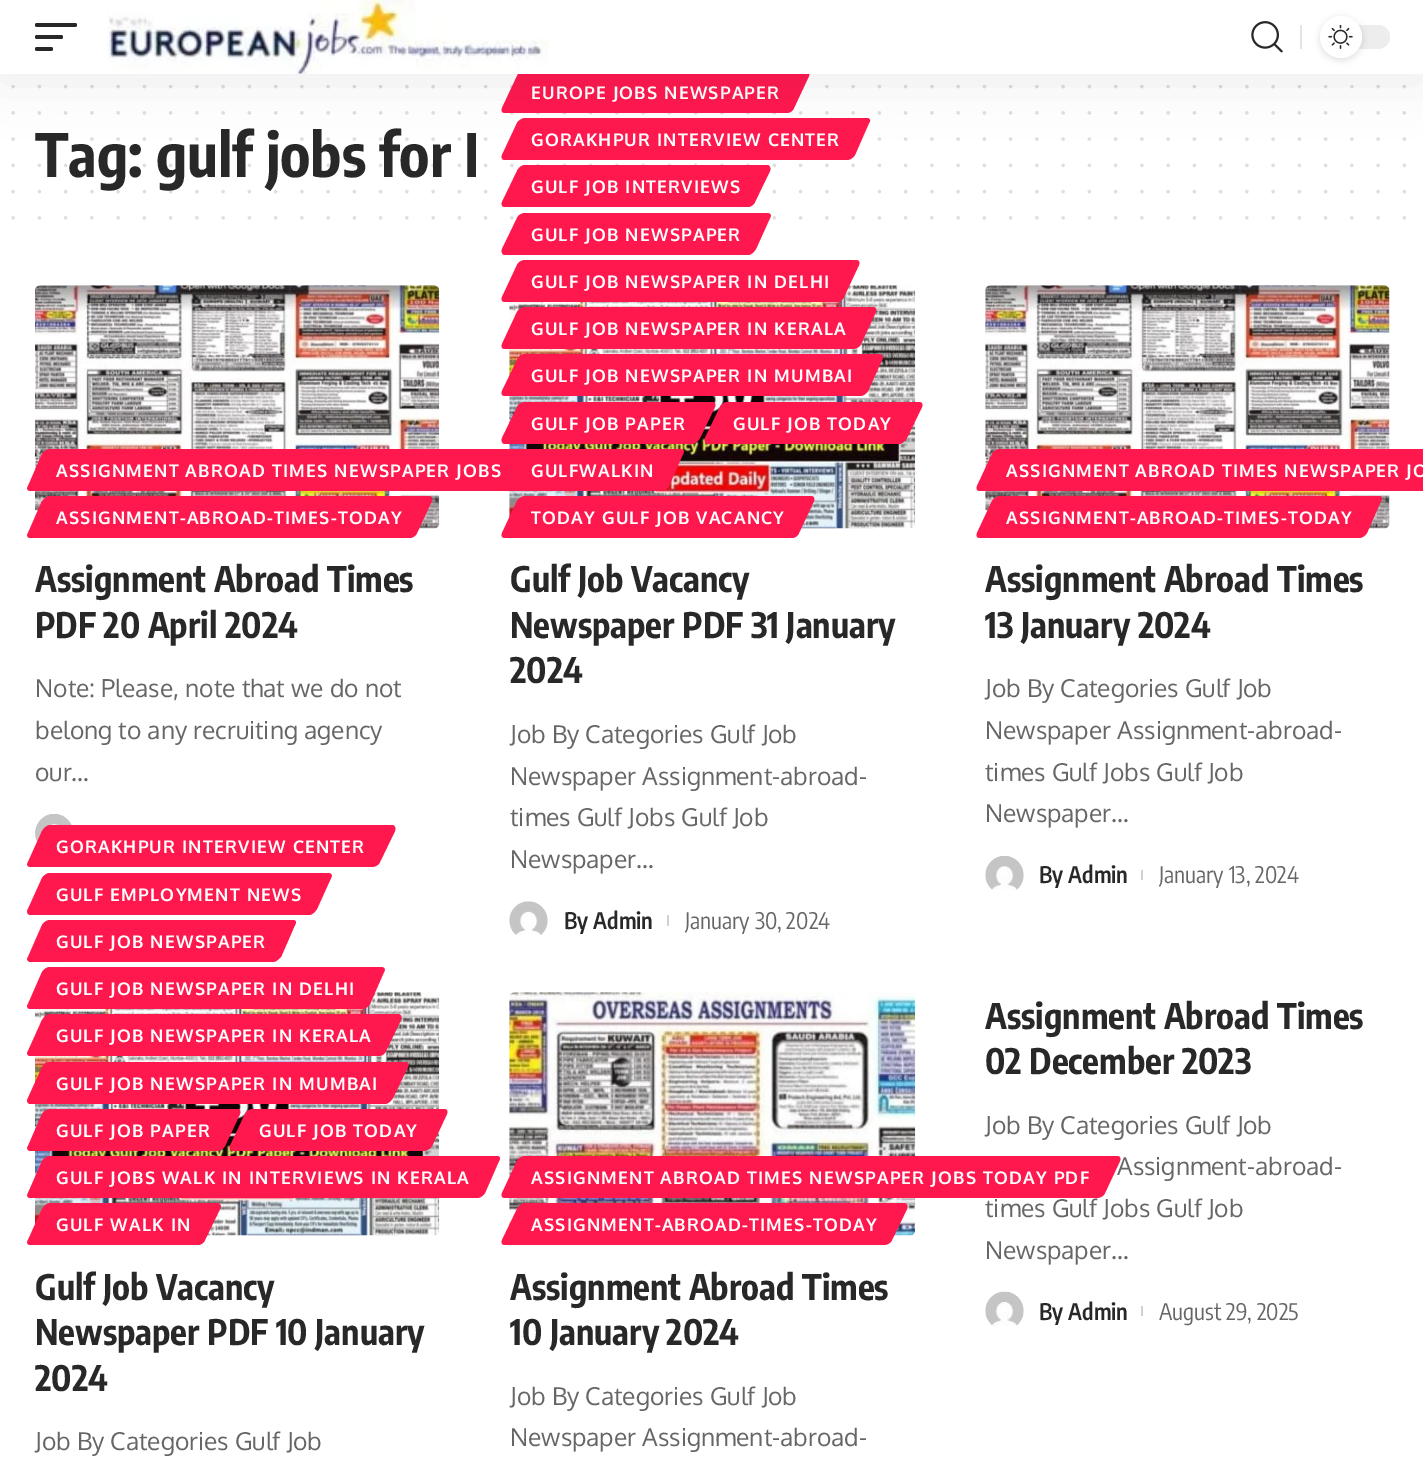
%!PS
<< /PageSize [1423 1478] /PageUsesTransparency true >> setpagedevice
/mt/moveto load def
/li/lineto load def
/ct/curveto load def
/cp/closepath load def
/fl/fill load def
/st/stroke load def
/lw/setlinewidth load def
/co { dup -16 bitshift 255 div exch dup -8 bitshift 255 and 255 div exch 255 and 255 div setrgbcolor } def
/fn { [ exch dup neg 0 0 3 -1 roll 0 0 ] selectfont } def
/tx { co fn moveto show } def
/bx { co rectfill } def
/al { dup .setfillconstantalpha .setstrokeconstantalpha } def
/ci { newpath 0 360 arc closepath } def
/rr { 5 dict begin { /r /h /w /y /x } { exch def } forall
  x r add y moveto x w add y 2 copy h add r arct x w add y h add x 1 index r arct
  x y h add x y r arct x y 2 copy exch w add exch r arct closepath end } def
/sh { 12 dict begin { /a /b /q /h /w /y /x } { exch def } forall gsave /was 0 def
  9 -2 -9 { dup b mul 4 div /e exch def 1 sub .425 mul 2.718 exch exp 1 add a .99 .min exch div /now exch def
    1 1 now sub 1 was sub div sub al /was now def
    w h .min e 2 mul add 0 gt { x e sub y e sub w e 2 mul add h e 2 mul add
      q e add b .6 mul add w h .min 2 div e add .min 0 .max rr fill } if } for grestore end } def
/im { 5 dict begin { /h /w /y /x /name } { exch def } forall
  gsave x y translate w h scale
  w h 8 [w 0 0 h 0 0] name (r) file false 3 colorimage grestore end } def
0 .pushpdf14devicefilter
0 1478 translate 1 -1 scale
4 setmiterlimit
0 0 1423 1478 16#FFFFFF bx
(media/4.raw) 35 285 405 244 im
(media/6.raw) 509 285 407 244 im
16#FF184E co
50 449 mt 642 449 li 645 449 646 451 645 454 ct 630 486 li 629 489 625 491 623 491 ct 30 491 li 28 491 26 489 28 486 ct 42 454 li 44 451 47 449 50 449 ct cp fl
50 496 mt 429 496 li 432 496 433 499 432 501 ct 417 533 li 416 536 412 538 410 538 ct 30 538 li 28 538 26 536 28 533 ct 42 501 li 44 499 47 496 50 496 ct cp fl
(media/5.raw) 35 814 37 28 im
16#DFDFDF co
3.5 lw
1 setlinecap
[0 26.25] 0 setdash
13.1 86.6 mt 1404.7 86.6 li st
13.1 112.9 mt 1404.7 112.9 li st
16#FF184E co
525 71 mt 806 71 li 809 71 810 73 809 76 ct 794 108 li 793 111 790 113 787 113 ct 505 113 li 502 113 501 111 502 108 ct 517 76 li 518 73 522 71 525 71 ct cp fl
16#DFDFDF co
13.1 217.9 mt 1404.7 217.9 li st
16#FF184E co
525 213 mt 767 213 li 770 213 772 215 770 218 ct 756 249 li 754 252 751 255 748 255 ct 505 255 li 502 255 501 252 502 249 ct 517 218 li 518 215 522 213 525 213 ct cp fl
525 260 mt 856 260 li 859 260 860 262 859 265 ct 844 297 li 843 300 839 302 837 302 ct 505 302 li 502 302 501 300 502 297 ct 517 265 li 518 262 522 260 525 260 ct cp fl
525 307 mt 873 307 li 876 307 877 310 876 312 ct 861 344 li 860 347 856 349 853 349 ct 505 349 li 502 349 501 347 502 344 ct 517 312 li 518 310 522 307 525 307 ct cp fl
525 354 mt 879 354 li 882 354 884 357 882 360 ct 868 391 li 866 394 863 396 860 396 ct 505 396 li 502 396 501 394 502 391 ct 517 360 li 518 357 522 354 525 354 ct cp fl
525 402 mt 712 402 li 715 402 716 404 715 407 ct 700 438 li 698 441 695 444 692 444 ct 505 444 li 502 444 501 441 502 438 ct 517 407 li 518 404 522 402 525 402 ct cp fl
727 402 mt 919 402 li 922 402 923 404 922 407 ct 907 438 li 905 441 902 444 899 444 ct 708 444 li 705 444 704 441 705 438 ct 720 407 li 721 404 725 402 727 402 ct cp fl
525 496 mt 811 496 li 814 496 815 499 814 501 ct 799 533 li 798 536 795 538 792 538 ct 505 538 li 502 538 501 536 502 533 ct 517 501 li 518 499 522 496 525 496 ct cp fl
(media/7.raw) 509 901 39 34 im
667 915 2 11 16#D1D1D1 bx
(media/8.raw) 985 285 405 244 im
16#FF184E co
1000 449 mt 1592 449 li 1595 449 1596 451 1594 454 ct 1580 486 li 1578 489 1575 491 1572 491 ct 980 491 li 977 491 976 489 977 486 ct 992 454 li 993 451 997 449 1000 449 ct cp fl
1000 496 mt 1379 496 li 1382 496 1383 499 1381 501 ct 1367 533 li 1365 536 1362 538 1359 538 ct 980 538 li 977 538 976 536 977 533 ct 992 501 li 993 499 997 496 1000 496 ct cp fl
(media/9.raw) 985 856 39 34 im
1141 870 2 10 16#D1D1D1 bx
16#FF184E co
50 825 mt 392 825 li 395 825 396 828 395 831 ct 380 862 li 379 865 375 867 372 867 ct 30 867 li 28 867 26 865 28 862 ct 42 831 li 44 828 47 825 50 825 ct cp fl
50 873 mt 328 873 li 331 873 333 875 331 878 ct 317 909 li 315 912 312 915 309 915 ct 30 915 li 28 915 26 912 28 909 ct 42 878 li 44 875 47 873 50 873 ct cp fl
50 920 mt 293 920 li 296 920 297 922 295 925 ct 281 957 li 279 959 276 962 273 962 ct 30 962 li 28 962 26 959 28 957 ct 42 925 li 44 922 47 920 50 920 ct cp fl
(media/10.raw) 35 992 405 244 im
50 967 mt 381 967 li 384 967 386 969 384 972 ct 370 1004 li 368 1007 365 1009 362 1009 ct 30 1009 li 28 1009 26 1007 28 1004 ct 42 972 li 44 969 47 967 50 967 ct cp fl
50 1014 mt 398 1014 li 401 1014 402 1017 401 1020 ct 386 1051 li 385 1054 382 1056 379 1056 ct 30 1056 li 28 1056 26 1054 28 1051 ct 42 1020 li 44 1017 47 1014 50 1014 ct cp fl
50 1062 mt 405 1062 li 408 1062 409 1064 408 1067 ct 393 1098 li 391 1101 388 1104 385 1104 ct 30 1104 li 28 1104 26 1101 28 1098 ct 42 1067 li 44 1064 47 1062 50 1062 ct cp fl
50 1109 mt 237 1109 li 240 1109 241 1111 240 1114 ct 225 1146 li 224 1148 220 1151 217 1151 ct 30 1151 li 28 1151 26 1148 28 1146 ct 42 1114 li 44 1111 47 1109 50 1109 ct cp fl
253 1109 mt 444 1109 li 447 1109 448 1111 447 1114 ct 432 1146 li 431 1148 427 1151 424 1151 ct 233 1151 li 230 1151 229 1148 230 1146 ct 245 1114 li 246 1111 250 1109 253 1109 ct cp fl
50 1156 mt 497 1156 li 500 1156 501 1158 499 1161 ct 485 1193 li 483 1196 480 1198 477 1198 ct 30 1198 li 28 1198 26 1196 28 1193 ct 42 1161 li 44 1158 47 1156 50 1156 ct cp fl
50 1203 mt 217 1203 li 220 1203 222 1206 220 1209 ct 205 1240 li 204 1243 201 1245 198 1245 ct 30 1245 li 28 1245 26 1243 28 1240 ct 42 1209 li 44 1206 47 1203 50 1203 ct cp fl
(media/11.raw) 509 992 407 244 im
525 1203 mt 904 1203 li 907 1203 908 1206 907 1209 ct 892 1240 li 891 1243 887 1245 884 1245 ct 505 1245 li 502 1245 501 1243 502 1240 ct 517 1209 li 518 1206 522 1203 525 1203 ct cp fl
(media/12.raw) 985 1291 39 35 im
1141 1306 2 10 16#D1D1D1 bx
/Oxygen-Bold 17.5 fn
16#FFFFFF co
56 477 mt 1.2 0 (ASSIGNMENT ABROAD TIMES NEWSPAPER JOBS) ashow
56 524 mt 1.2 0 (ASSIGNMENT-ABROAD-TIMES-TODAY) ashow
(Assignment Abroad Times) 35 592 /EncodeSansCondensed-Bold 35 16#282828 tx
(PDF 20 April 2024) 35 638 /EncodeSansCondensed-Bold 35 16#282828 tx
(Note: Please, note that we do not) 35 697 /Oxygen-Regular 24.5 16#666666 tx
(belong to any recruiting agency) 35 739 /Oxygen-Regular 24.5 16#666666 tx
(our…) 35 781 /Oxygen-Regular 24.5 16#666666 tx
/Oxygen-Bold 17.5 fn
16#FFFFFF co
531 99 mt 1.2 0 (EUROPE JOBS NEWSPAPER) ashow
531 241 mt 1.2 0 (GULF JOB NEWSPAPER) ashow
531 288 mt 1.2 0 (GULF JOB NEWSPAPER IN DELHI) ashow
531 335 mt 1.2 0 (GULF JOB NEWSPAPER IN KERALA) ashow
531 382 mt 1.2 0 (GULF JOB NEWSPAPER IN MUMBAI) ashow
531 430 mt 1.2 0 (GULF JOB PAPER) ashow
733 430 mt 1.2 0 (GULF JOB TODAY) ashow
16#FF184E co
525 449 mt 680 449 li 683 449 685 451 683 454 ct 669 486 li 667 489 664 491 661 491 ct 505 491 li 502 491 501 489 502 486 ct 517 454 li 518 451 522 449 525 449 ct cp fl
16#FFFFFF co
531 477 mt 1.2 0 (GULFWALKIN) ashow
531 524 mt 1.2 0 (TODAY GULF JOB VACANCY) ashow
(Gulf Job Vacancy) 510 592 /EncodeSansCondensed-Bold 35 16#282828 tx
(Newspaper PDF 31 January) 510 638 /EncodeSansCondensed-Bold 35 16#282828 tx
(2024) 510 683 /EncodeSansCondensed-Bold 35 16#282828 tx
(Job By Categories Gulf Job) 510 743 /Oxygen-Regular 24.5 16#666666 tx
(Newspaper Assignment-abroad-) 510 785 /Oxygen-Regular 24.5 16#666666 tx
(times Gulf Jobs Gulf Job) 510 826 /Oxygen-Regular 24.5 16#666666 tx
(Newspaper…) 510 868 /Oxygen-Regular 24.5 16#666666 tx
(By Admin) 564 929 /EncodeSansCondensed-SemiBold 22.75 16#282828 tx
(January 30, 2024) 685 929 /EncodeSansCondensed-Regular 22.75 16#666666 tx
/Oxygen-Bold 17.5 fn
16#FFFFFF co
1006 477 mt 1.2 0 (ASSIGNMENT ABROAD TIMES NEWSPAPER JO) ashow
1006 524 mt 1.2 0 (ASSIGNMENT-ABROAD-TIMES-TODAY) ashow
(Assignment Abroad Times) 985 592 /EncodeSansCondensed-Bold 35 16#282828 tx
(13 January 2024) 985 638 /EncodeSansCondensed-Bold 35 16#282828 tx
(Job By Categories Gulf Job) 985 697 /Oxygen-Regular 24.5 16#666666 tx
(Newspaper Assignment-abroad-) 985 739 /Oxygen-Regular 24.5 16#666666 tx
(times Gulf Jobs Gulf Job) 985 781 /Oxygen-Regular 24.5 16#666666 tx
(Newspaper…) 985 822 /Oxygen-Regular 24.5 16#666666 tx
(By Admin) 1039 883 /EncodeSansCondensed-SemiBold 22.75 16#282828 tx
(January 13, 2024) 1159 883 /EncodeSansCondensed-Regular 22.75 16#666666 tx
/Oxygen-Bold 17.5 fn
16#FFFFFF co
56 853 mt 1.2 0 (GORAKHPUR INTERVIEW CENTER) ashow
56 901 mt 1.2 0 (GULF EMPLOYMENT NEWS) ashow
56 948 mt 1.2 0 (GULF JOB NEWSPAPER) ashow
56 995 mt 1.2 0 (GULF JOB NEWSPAPER IN DELHI) ashow
56 1042 mt 1.2 0 (GULF JOB NEWSPAPER IN KERALA) ashow
56 1090 mt 1.2 0 (GULF JOB NEWSPAPER IN MUMBAI) ashow
56 1137 mt 1.2 0 (GULF JOB PAPER) ashow
259 1137 mt 1.2 0 (GULF JOB TODAY) ashow
56 1184 mt 1.2 0 (GULF JOBS WALK IN INTERVIEWS IN KERALA) ashow
56 1231 mt 1.2 0 (GULF WALK IN) ashow
(Gulf Job Vacancy) 35 1300 /EncodeSansCondensed-Bold 35 16#282828 tx
(Newspaper PDF 10 January) 35 1345 /EncodeSansCondensed-Bold 35 16#282828 tx
(2024) 35 1391 /EncodeSansCondensed-Bold 35 16#282828 tx
(Job By Categories Gulf Job) 35 1450 /Oxygen-Regular 24.5 16#666666 tx
/Oxygen-Bold 17.5 fn
16#FFFFFF co
531 1231 mt 1.2 0 (ASSIGNMENT-ABROAD-TIMES-TODAY) ashow
(Assignment Abroad Times) 510 1300 /EncodeSansCondensed-Bold 35 16#282828 tx
(10 January 2024) 510 1345 /EncodeSansCondensed-Bold 35 16#282828 tx
(Job By Categories Gulf Job) 510 1405 /Oxygen-Regular 24.5 16#666666 tx
(Newspaper Assignment-abroad-) 510 1446 /Oxygen-Regular 24.5 16#666666 tx
(Assignment Abroad Times) 985 1029 /EncodeSansCondensed-Bold 35 16#282828 tx
(02 December 2023) 985 1074 /EncodeSansCondensed-Bold 35 16#282828 tx
(Job By Categories Gulf Job) 985 1134 /Oxygen-Regular 24.5 16#666666 tx
(Assignment-abroad-) 1117 1175 /Oxygen-Regular 24.5 16#666666 tx
16#FF184E co
525 1156 mt 1117 1156 li 1120 1156 1121 1158 1120 1161 ct 1105 1193 li 1104 1196 1100 1198 1097 1198 ct 505 1198 li 502 1198 501 1196 502 1193 ct 517 1161 li 518 1158 522 1156 525 1156 ct cp fl
/Oxygen-Bold 17.5 fn
16#FFFFFF co
531 1184 mt 1.2 0 (ASSIGNMENT ABROAD TIMES NEWSPAPER JOBS TODAY PDF) ashow
(times Gulf Jobs Gulf Job) 985 1217 /Oxygen-Regular 24.5 16#666666 tx
(Newspaper…) 985 1259 /Oxygen-Regular 24.5 16#666666 tx
(By Admin) 1039 1320 /EncodeSansCondensed-SemiBold 22.75 16#282828 tx
(August 29, 2025) 1159 1320 /EncodeSansCondensed-Regular 22.75 16#666666 tx
(Tag: gulf jobs for I) 35 177 /EncodeSansCondensed-Bold 59.5 16#282828 tx
0.15 al
13.1 139.1 mt 1404.7 139.1 li st
1 al
16#FF184E co
525 118 mt 867 118 li 870 118 871 121 869 123 ct 855 155 li 853 158 850 160 847 160 ct 505 160 li 502 160 501 158 502 155 ct 517 123 li 518 121 522 118 525 118 ct cp fl
16#000000 co
0 7 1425 74 0 26 .07 sh
0 0 1423 74 16#FFFFFF bx
16#EDEDED co
1320 25 70 24 12 rr fl
16#000000 co
1320 18 42 42 21 3.5 .12 sh
16#FFFFFF co
1341 37 21 ci fl
(media/3.raw) 1328 25 25 24 im
1300 25 2 24 16#E4E4E4 bx
(media/2.raw) 1251 21 32 32 im
16#282828 co
35 47 18 4 2 rr fl
35 35 28 4 2 rr fl
35 23 42 4 2 rr fl
(media/1.raw) 107 0 442 74 im
0.15 al
13.1 191.6 mt 1404.7 191.6 li st
13.1 165.4 mt 1404.7 165.4 li st
1 al
16#FF184E co
525 165 mt 767 165 li 770 165 771 168 770 171 ct 755 202 li 754 205 750 207 748 207 ct 505 207 li 502 207 501 205 502 202 ct 517 171 li 518 168 522 165 525 165 ct cp fl
/Oxygen-Bold 17.5 fn
16#FFFFFF co
531 193 mt 1.2 0 (GULF JOB INTERVIEWS) ashow
531 146 mt 1.2 0 (GORAKHPUR INTERVIEW CENTER) ashow
.poppdf14devicefilter showpage
